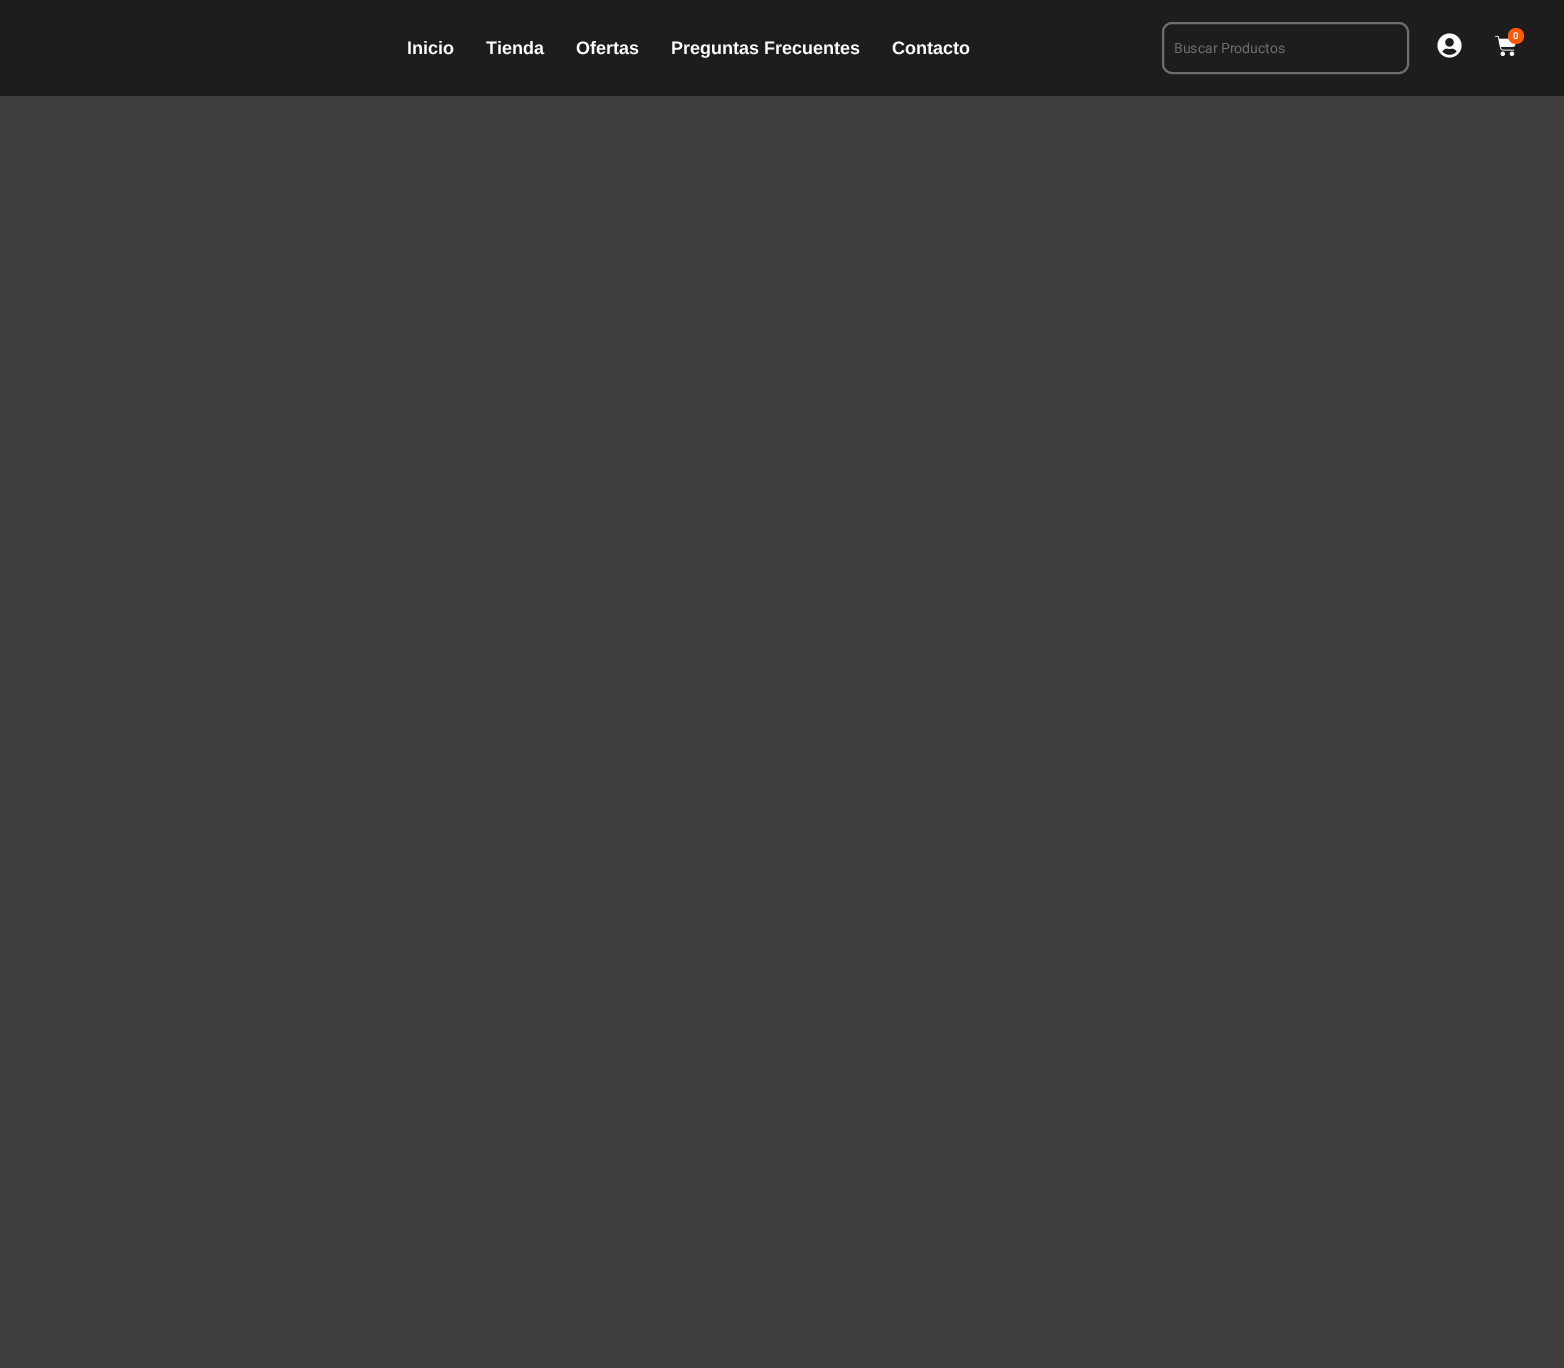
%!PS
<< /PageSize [1564 1368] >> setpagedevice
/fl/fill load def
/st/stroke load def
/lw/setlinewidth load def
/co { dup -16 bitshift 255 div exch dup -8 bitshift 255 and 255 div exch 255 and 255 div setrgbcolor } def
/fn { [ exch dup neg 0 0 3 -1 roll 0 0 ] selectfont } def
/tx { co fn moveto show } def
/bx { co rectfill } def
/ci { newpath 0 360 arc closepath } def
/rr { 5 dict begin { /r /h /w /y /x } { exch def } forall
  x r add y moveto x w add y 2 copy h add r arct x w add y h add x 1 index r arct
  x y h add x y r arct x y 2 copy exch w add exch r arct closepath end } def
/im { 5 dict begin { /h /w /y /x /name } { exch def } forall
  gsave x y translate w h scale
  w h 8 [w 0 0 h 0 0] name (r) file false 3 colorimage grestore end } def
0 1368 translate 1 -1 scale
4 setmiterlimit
0 0 1564 1368 16#403E3F bx
0 0 1564 96 16#1D1D1D bx
16#6E6E6E co
2 lw
1163 23 245 50 9 rr st
(media/1.raw) 1437 33 25 25 im
(media/2.raw) 1495 35 21 22 im
16#FF5A01 co
1516 36 8 ci fl
(Inicio) 407 54 /LiberationSans-Bold 18 16#FFFFFF tx
(Tienda) 486 54 /LiberationSans-Bold 18 16#FFFFFF tx
(Ofertas) 576 54 /LiberationSans-Bold 18 16#FFFFFF tx
(Preguntas Frecuentes) 671 54 /LiberationSans-Bold 18 16#FFFFFF tx
(Contacto) 892 54 /LiberationSans-Bold 18 16#FFFFFF tx
(Buscar Productos) 1174 53 /Roboto-Regular 14 16#6E6E6E tx
(0) 1513 39 /LiberationSans-Bold 10 16#FFFFFF tx
showpage
